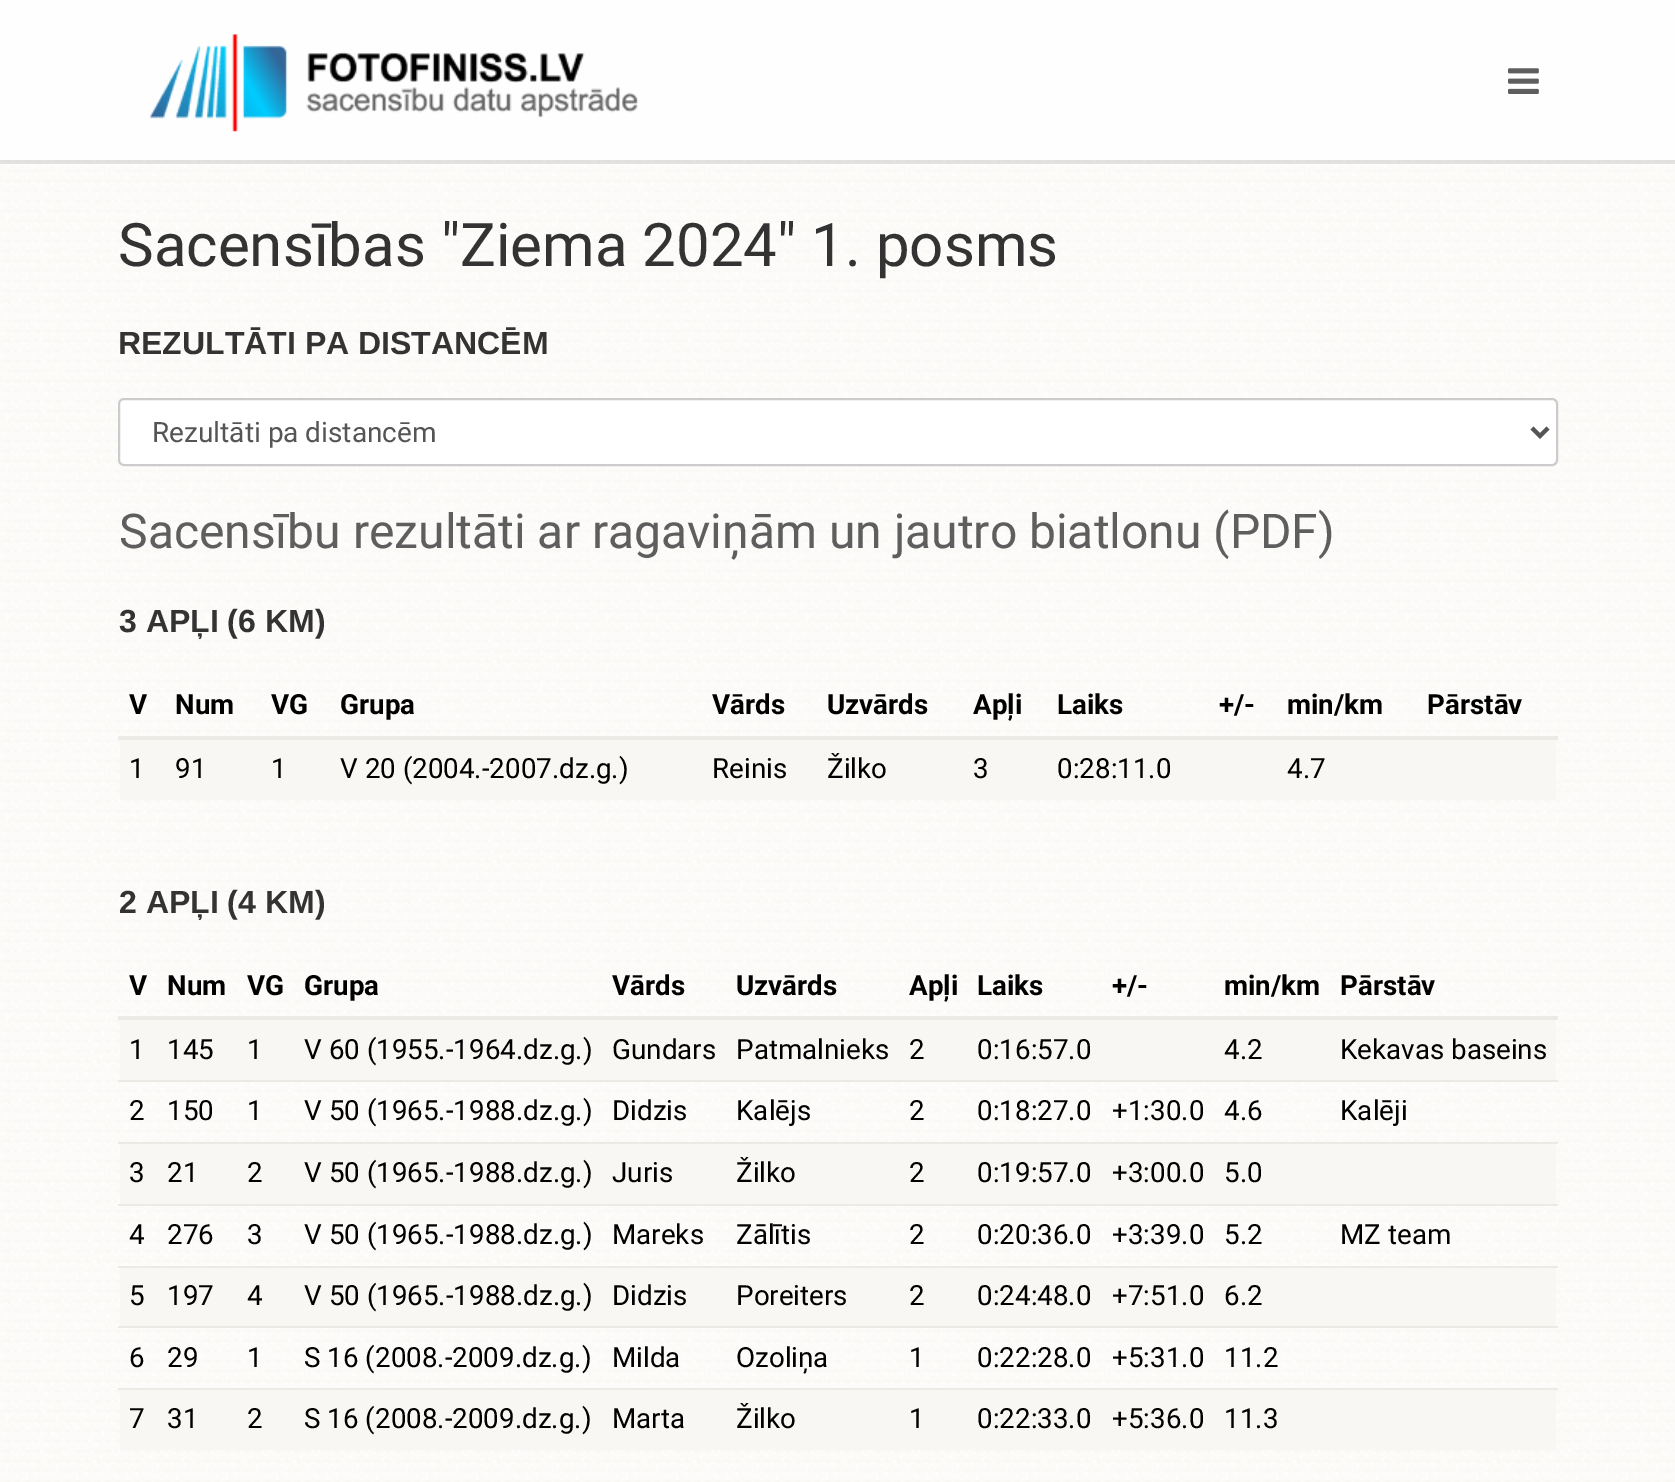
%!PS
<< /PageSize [1675 1482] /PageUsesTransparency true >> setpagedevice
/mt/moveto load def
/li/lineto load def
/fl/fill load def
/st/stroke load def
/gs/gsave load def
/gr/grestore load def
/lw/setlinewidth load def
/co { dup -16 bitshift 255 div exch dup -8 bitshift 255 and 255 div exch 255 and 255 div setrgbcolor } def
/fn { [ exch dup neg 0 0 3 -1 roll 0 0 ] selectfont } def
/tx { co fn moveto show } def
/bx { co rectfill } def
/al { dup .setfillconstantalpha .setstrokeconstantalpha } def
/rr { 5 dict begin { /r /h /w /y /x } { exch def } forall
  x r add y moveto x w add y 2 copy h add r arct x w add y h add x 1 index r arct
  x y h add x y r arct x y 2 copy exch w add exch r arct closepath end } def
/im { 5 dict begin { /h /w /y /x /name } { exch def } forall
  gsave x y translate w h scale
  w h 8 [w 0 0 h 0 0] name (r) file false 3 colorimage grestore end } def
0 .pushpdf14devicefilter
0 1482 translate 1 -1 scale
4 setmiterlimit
0 0 1675 1482 16#FFFFFF bx
(media/1.raw) 0 0 1675 1482 im
0.1 al
0 160 1675 4 16#000000 bx
0.8 al
0 0 1675 160 16#FFFFFF bx
1 al
(media/2.raw) 150 34 488 98 im
(media/3.raw) 1508 68 31 26 im
119 399 1438 66 5 rr gs fl gr
16#CCCCCC co
2 lw
st
16#555555 co
4 lw
1532 428 mt 1540 436 li 1548 428 li st
118 736 1440 4 16#ECEAE4 bx
120 740 1436 60 16#F8F7F3 bx
118 1016 1440 4 16#ECEAE4 bx
120 1020 1436 60 16#F8F7F3 bx
118 1080 1440 2 16#ECEAE4 bx
118 1142 1440 2 16#ECEAE4 bx
120 1144 1436 60 16#F8F7F3 bx
118 1204 1440 2 16#ECEAE4 bx
118 1266 1440 2 16#ECEAE4 bx
120 1268 1436 58 16#F8F7F3 bx
118 1326 1440 2 16#ECEAE4 bx
118 1388 1440 2 16#ECEAE4 bx
120 1390 1436 60 16#F8F7F3 bx
(Sacensības "Ziema 2024" 1. posms) 118 266 /Roboto-Regular 60 16#333333 tx
(REZULTĀTI PA DISTANCĒM) 118 354 /LiberationSans-Bold 32 16#333333 tx
(Rezultāti pa distancēm) 152 442 /Roboto-Regular 28 16#555555 tx
(Sacensību rezultāti ar ragaviņām un jautro biatlonu \(PDF\)) 119 548 /Roboto-Regular 48 16#5E5E5E tx
(3 APĻI \(6 KM\)) 119 632 /LiberationSans-Bold 32 16#333333 tx
(V) 129 714 /Roboto-Bold 27.75 16#000000 tx
(Num) 175 714 /Roboto-Bold 27.75 16#000000 tx
(VG) 271 714 /Roboto-Bold 27.75 16#000000 tx
(Grupa) 340 714 /Roboto-Bold 27.75 16#000000 tx
(Vārds) 712 714 /Roboto-Bold 27.75 16#000000 tx
(Uzvārds) 827 714 /Roboto-Bold 27.75 16#000000 tx
(Apļi) 973 714 /Roboto-Bold 27.75 16#000000 tx
(Laiks) 1057 714 /Roboto-Bold 27.75 16#000000 tx
(+/-) 1219 714 /Roboto-Bold 27.75 16#000000 tx
(min/km) 1287 714 /Roboto-Bold 27.75 16#000000 tx
(Pārstāv) 1427 714 /Roboto-Bold 27.75 16#000000 tx
(1) 129 778 /Roboto-Regular 27.75 16#000000 tx
(91) 175 778 /Roboto-Regular 27.75 16#000000 tx
(1) 271 778 /Roboto-Regular 27.75 16#000000 tx
(V 20 \(2004.-2007.dz.g.\)) 340 778 /Roboto-Regular 27.75 16#000000 tx
(Reinis) 712 778 /Roboto-Regular 27.75 16#000000 tx
(Žilko) 827 778 /Roboto-Regular 27.75 16#000000 tx
(3) 973 778 /Roboto-Regular 27.75 16#000000 tx
(0:28:11.0) 1057 778 /Roboto-Regular 27.75 16#000000 tx
(4.7) 1287 778 /Roboto-Regular 27.75 16#000000 tx
(2 APĻI \(4 KM\)) 119 913 /LiberationSans-Bold 32 16#333333 tx
(V) 129 995 /Roboto-Bold 27.75 16#000000 tx
(Num) 167 995 /Roboto-Bold 27.75 16#000000 tx
(VG) 247 995 /Roboto-Bold 27.75 16#000000 tx
(Grupa) 304 995 /Roboto-Bold 27.75 16#000000 tx
(Vārds) 612 995 /Roboto-Bold 27.75 16#000000 tx
(Uzvārds) 736 995 /Roboto-Bold 27.75 16#000000 tx
(Apļi) 909 995 /Roboto-Bold 27.75 16#000000 tx
(Laiks) 977 995 /Roboto-Bold 27.75 16#000000 tx
(+/-) 1112 995 /Roboto-Bold 27.75 16#000000 tx
(min/km) 1224 995 /Roboto-Bold 27.75 16#000000 tx
(Pārstāv) 1340 995 /Roboto-Bold 27.75 16#000000 tx
(1) 129 1059 /Roboto-Regular 27.75 16#000000 tx
(145) 167 1059 /Roboto-Regular 27.75 16#000000 tx
(1) 247 1059 /Roboto-Regular 27.75 16#000000 tx
(V 60 \(1955.-1964.dz.g.\)) 304 1059 /Roboto-Regular 27.75 16#000000 tx
(Gundars) 612 1059 /Roboto-Regular 27.75 16#000000 tx
(Patmalnieks) 736 1059 /Roboto-Regular 27.75 16#000000 tx
(2) 909 1059 /Roboto-Regular 27.75 16#000000 tx
(0:16:57.0) 977 1059 /Roboto-Regular 27.75 16#000000 tx
(4.2) 1224 1059 /Roboto-Regular 27.75 16#000000 tx
(Kekavas baseins) 1340 1059 /Roboto-Regular 27.75 16#000000 tx
(2) 129 1120 /Roboto-Regular 27.75 16#000000 tx
(150) 167 1120 /Roboto-Regular 27.75 16#000000 tx
(1) 247 1120 /Roboto-Regular 27.75 16#000000 tx
(V 50 \(1965.-1988.dz.g.\)) 304 1120 /Roboto-Regular 27.75 16#000000 tx
(Didzis) 612 1120 /Roboto-Regular 27.75 16#000000 tx
(Kalējs) 736 1120 /Roboto-Regular 27.75 16#000000 tx
(2) 909 1120 /Roboto-Regular 27.75 16#000000 tx
(0:18:27.0) 977 1120 /Roboto-Regular 27.75 16#000000 tx
(+1:30.0) 1112 1120 /Roboto-Regular 27.75 16#000000 tx
(4.6) 1224 1120 /Roboto-Regular 27.75 16#000000 tx
(Kalēji) 1340 1120 /Roboto-Regular 27.75 16#000000 tx
(3) 129 1182 /Roboto-Regular 27.75 16#000000 tx
(21) 167 1182 /Roboto-Regular 27.75 16#000000 tx
(2) 247 1182 /Roboto-Regular 27.75 16#000000 tx
(V 50 \(1965.-1988.dz.g.\)) 304 1182 /Roboto-Regular 27.75 16#000000 tx
(Juris) 612 1182 /Roboto-Regular 27.75 16#000000 tx
(Žilko) 736 1182 /Roboto-Regular 27.75 16#000000 tx
(2) 909 1182 /Roboto-Regular 27.75 16#000000 tx
(0:19:57.0) 977 1182 /Roboto-Regular 27.75 16#000000 tx
(+3:00.0) 1112 1182 /Roboto-Regular 27.75 16#000000 tx
(5.0) 1224 1182 /Roboto-Regular 27.75 16#000000 tx
(4) 129 1244 /Roboto-Regular 27.75 16#000000 tx
(276) 167 1244 /Roboto-Regular 27.75 16#000000 tx
(3) 247 1244 /Roboto-Regular 27.75 16#000000 tx
(V 50 \(1965.-1988.dz.g.\)) 304 1244 /Roboto-Regular 27.75 16#000000 tx
(Mareks) 612 1244 /Roboto-Regular 27.75 16#000000 tx
(Zālītis) 736 1244 /Roboto-Regular 27.75 16#000000 tx
(2) 909 1244 /Roboto-Regular 27.75 16#000000 tx
(0:20:36.0) 977 1244 /Roboto-Regular 27.75 16#000000 tx
(+3:39.0) 1112 1244 /Roboto-Regular 27.75 16#000000 tx
(5.2) 1224 1244 /Roboto-Regular 27.75 16#000000 tx
(MZ team) 1340 1244 /Roboto-Regular 27.75 16#000000 tx
(5) 129 1305 /Roboto-Regular 27.75 16#000000 tx
(197) 167 1305 /Roboto-Regular 27.75 16#000000 tx
(4) 247 1305 /Roboto-Regular 27.75 16#000000 tx
(V 50 \(1965.-1988.dz.g.\)) 304 1305 /Roboto-Regular 27.75 16#000000 tx
(Didzis) 612 1305 /Roboto-Regular 27.75 16#000000 tx
(Poreiters) 736 1305 /Roboto-Regular 27.75 16#000000 tx
(2) 909 1305 /Roboto-Regular 27.75 16#000000 tx
(0:24:48.0) 977 1305 /Roboto-Regular 27.75 16#000000 tx
(+7:51.0) 1112 1305 /Roboto-Regular 27.75 16#000000 tx
(6.2) 1224 1305 /Roboto-Regular 27.75 16#000000 tx
(6) 129 1367 /Roboto-Regular 27.75 16#000000 tx
(29) 167 1367 /Roboto-Regular 27.75 16#000000 tx
(1) 247 1367 /Roboto-Regular 27.75 16#000000 tx
(S 16 \(2008.-2009.dz.g.\)) 304 1367 /Roboto-Regular 27.75 16#000000 tx
(Milda) 612 1367 /Roboto-Regular 27.75 16#000000 tx
(Ozoliņa) 736 1367 /Roboto-Regular 27.75 16#000000 tx
(1) 909 1367 /Roboto-Regular 27.75 16#000000 tx
(0:22:28.0) 977 1367 /Roboto-Regular 27.75 16#000000 tx
(+5:31.0) 1112 1367 /Roboto-Regular 27.75 16#000000 tx
(11.2) 1224 1367 /Roboto-Regular 27.75 16#000000 tx
(7) 129 1428 /Roboto-Regular 27.75 16#000000 tx
(31) 167 1428 /Roboto-Regular 27.75 16#000000 tx
(2) 247 1428 /Roboto-Regular 27.75 16#000000 tx
(S 16 \(2008.-2009.dz.g.\)) 304 1428 /Roboto-Regular 27.75 16#000000 tx
(Marta) 612 1428 /Roboto-Regular 27.75 16#000000 tx
(Žilko) 736 1428 /Roboto-Regular 27.75 16#000000 tx
(1) 909 1428 /Roboto-Regular 27.75 16#000000 tx
(0:22:33.0) 977 1428 /Roboto-Regular 27.75 16#000000 tx
(+5:36.0) 1112 1428 /Roboto-Regular 27.75 16#000000 tx
(11.3) 1224 1428 /Roboto-Regular 27.75 16#000000 tx
.poppdf14devicefilter showpage
